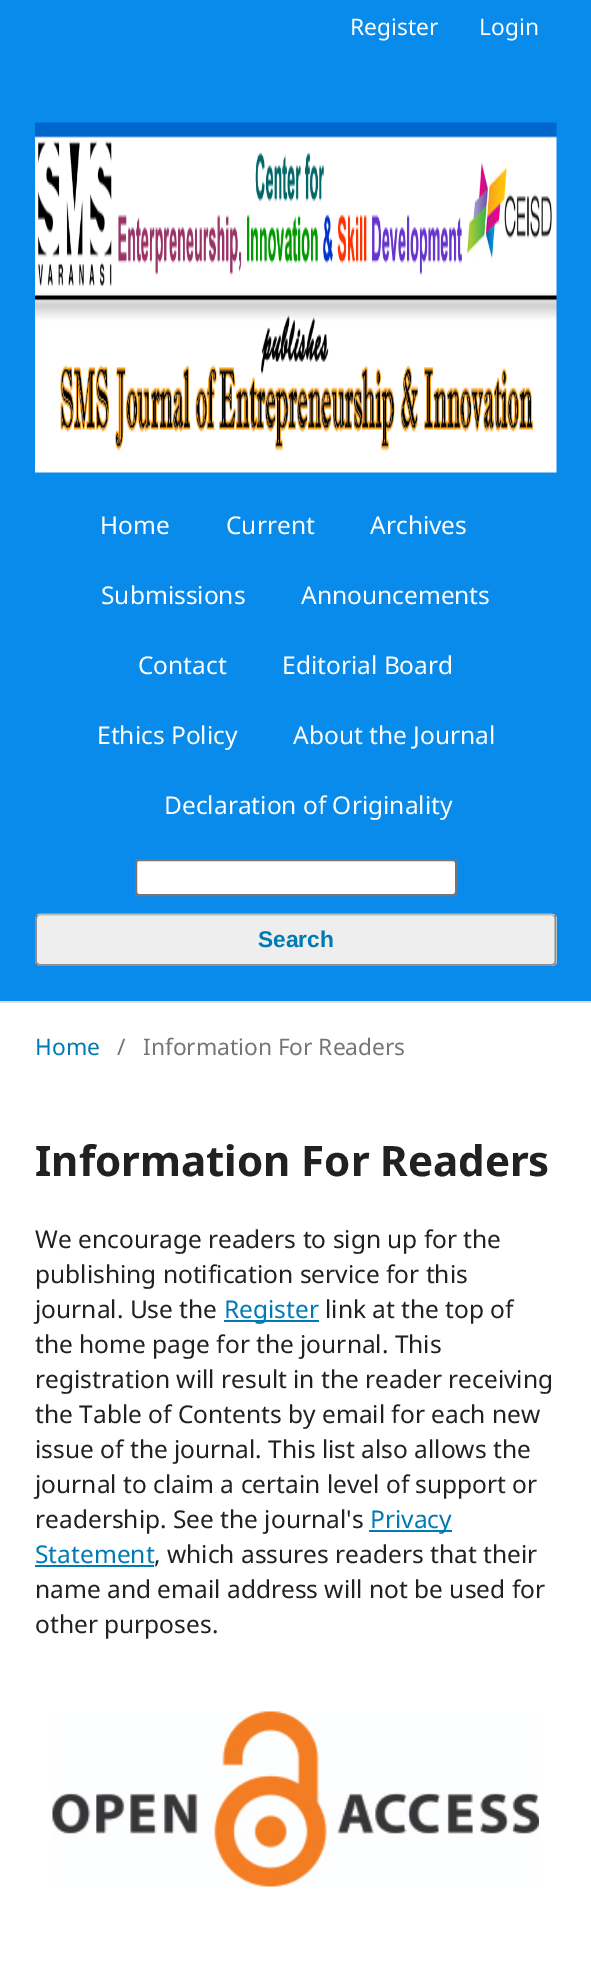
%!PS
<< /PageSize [591 1986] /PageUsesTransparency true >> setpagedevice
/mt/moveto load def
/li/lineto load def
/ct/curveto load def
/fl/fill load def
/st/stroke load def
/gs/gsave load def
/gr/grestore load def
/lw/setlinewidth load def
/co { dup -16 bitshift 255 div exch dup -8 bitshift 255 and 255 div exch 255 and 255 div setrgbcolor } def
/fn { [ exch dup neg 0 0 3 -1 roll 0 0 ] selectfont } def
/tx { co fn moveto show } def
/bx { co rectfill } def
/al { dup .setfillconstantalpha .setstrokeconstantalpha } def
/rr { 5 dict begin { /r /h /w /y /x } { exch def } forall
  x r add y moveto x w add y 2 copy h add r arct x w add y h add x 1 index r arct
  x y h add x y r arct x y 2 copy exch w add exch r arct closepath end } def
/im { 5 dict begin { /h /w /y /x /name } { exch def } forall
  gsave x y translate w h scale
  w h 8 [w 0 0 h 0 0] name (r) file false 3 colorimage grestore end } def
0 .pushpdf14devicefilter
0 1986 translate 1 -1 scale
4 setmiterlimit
0 0 591 1986 16#FFFFFF bx
0 0 591 1001 16#098BEC bx
0 1001 591 2 16#DDDDDD bx
(media/1.raw) 35 122 522 351 im
16#FFFFFF co
136 860 320 35 3 rr gs fl gr
16#767676 co
2 lw
st
16#EEEEEE co
35 914 522 52 5 rr fl
16#BBBBBB co
1.8 lw
37 915.5 mt 40 914.5 li 551 914.5 li 554.5 915.5 li st
0.4 al
16#000000 co
554.5 915.5 mt 555 916.5 555.5 917.5 555.5 919 ct 555.5 961 li 555.5 962 555 963 554.5 964 ct 553.5 964.5 552.5 965 551 965 ct 40 965 li 39 965 38 964.5 37 964 ct 36.5 963 36 962 36 961 ct 36 919 li 36 917.5 36.5 916.5 37 915.5 ct st
1 al
224 1320 95 2 16#007AB2 bx
369 1530 83 2 16#007AB2 bx
35 1565 119 2 16#007AB2 bx
(media/2.raw) 52 1711 487 176 im
(Register) 350 35 /NotoSans-Regular 22.75 16#FFFFFF tx
(Login) 479 35 /NotoSans-Regular 22.75 16#FFFFFF tx
(Home) 100 534 /NotoSans-Regular 24.5 16#FFFFFF tx
(Current) 226 534 /NotoSans-Regular 24.5 16#FFFFFF tx
(Archives) 370 534 /NotoSans-Regular 24.5 16#FFFFFF tx
(Submissions) 101 604 /NotoSans-Regular 24.5 16#FFFFFF tx
(Announcements) 301 604 /NotoSans-Regular 24.5 16#FFFFFF tx
(Contact) 138 674 /NotoSans-Regular 24.5 16#FFFFFF tx
(Editorial Board) 282 674 /NotoSans-Regular 24.5 16#FFFFFF tx
(Ethics Policy) 97 744 /NotoSans-Regular 24.5 16#FFFFFF tx
(About the Journal) 293 744 /NotoSans-Regular 24.5 16#FFFFFF tx
(Declaration of Originality) 164 814 /NotoSans-Regular 24.5 16#FFFFFF tx
(Search) 258 947 /LiberationSans-Bold 22.75 16#007AB2 tx
(Home) 35 1055 /NotoSans-Regular 22.75 16#007AB2 tx
(/) 117 1055 /NotoSans-Regular 22.75 16#757575 tx
(Information For Readers) 143 1055 /NotoSans-Regular 22.75 16#757575 tx
(Information For Readers) 35 1176 /NotoSans-Bold 42 16#212121 tx
(We encourage readers to sign up for the) 35 1248 /NotoSans-Regular 24.5 16#212121 tx
(publishing notification service for this) 35 1283 /NotoSans-Regular 24.5 16#212121 tx
(journal. Use the) 35 1318 /NotoSans-Regular 24.5 16#212121 tx
(Register) 224 1318 /NotoSans-Regular 24.5 16#007AB2 tx
(link at the top of) 325 1318 /NotoSans-Regular 24.5 16#212121 tx
(the home page for the journal. This) 35 1353 /NotoSans-Regular 24.5 16#212121 tx
(registration will result in the reader receiving) 35 1388 /NotoSans-Regular 24.5 16#212121 tx
(the Table of Contents by email for each new) 35 1423 /NotoSans-Regular 24.5 16#212121 tx
(issue of the journal. This list also allows the) 35 1458 /NotoSans-Regular 24.5 16#212121 tx
(journal to claim a certain level of support or) 35 1493 /NotoSans-Regular 24.5 16#212121 tx
(readership. See the journal's) 35 1528 /NotoSans-Regular 24.5 16#212121 tx
(Privacy) 370 1528 /NotoSans-Regular 24.5 16#007AB2 tx
(Statement) 35 1563 /NotoSans-Regular 24.5 16#007AB2 tx
(, which assures readers that their) 154 1563 /NotoSans-Regular 24.5 16#212121 tx
(name and email address will not be used for) 35 1598 /NotoSans-Regular 24.5 16#212121 tx
(other purposes.) 35 1633 /NotoSans-Regular 24.5 16#212121 tx
.poppdf14devicefilter showpage
